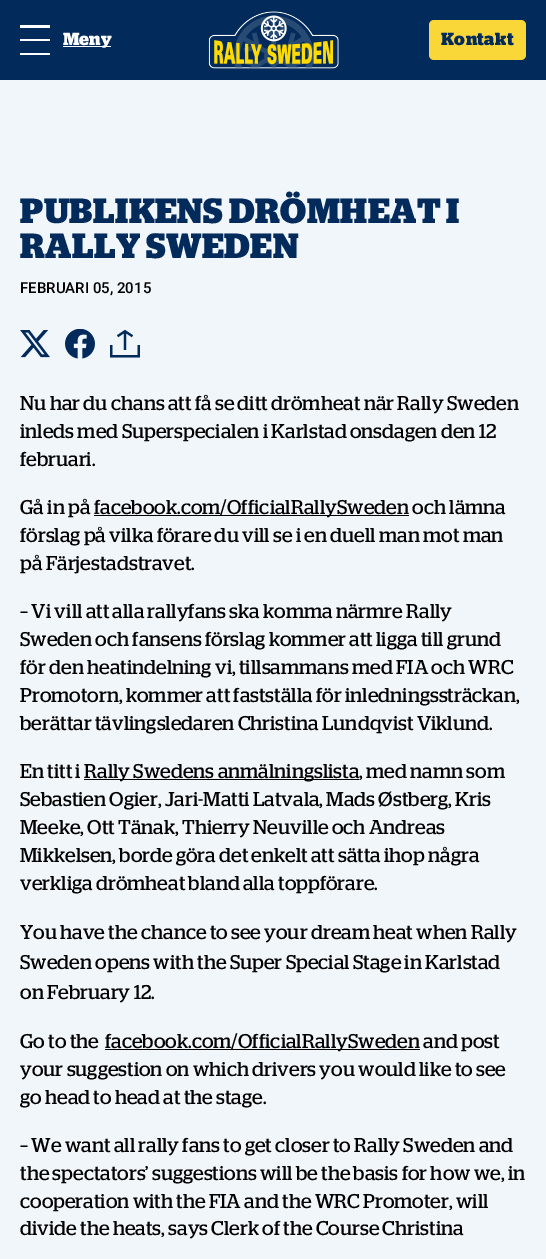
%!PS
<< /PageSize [546 1259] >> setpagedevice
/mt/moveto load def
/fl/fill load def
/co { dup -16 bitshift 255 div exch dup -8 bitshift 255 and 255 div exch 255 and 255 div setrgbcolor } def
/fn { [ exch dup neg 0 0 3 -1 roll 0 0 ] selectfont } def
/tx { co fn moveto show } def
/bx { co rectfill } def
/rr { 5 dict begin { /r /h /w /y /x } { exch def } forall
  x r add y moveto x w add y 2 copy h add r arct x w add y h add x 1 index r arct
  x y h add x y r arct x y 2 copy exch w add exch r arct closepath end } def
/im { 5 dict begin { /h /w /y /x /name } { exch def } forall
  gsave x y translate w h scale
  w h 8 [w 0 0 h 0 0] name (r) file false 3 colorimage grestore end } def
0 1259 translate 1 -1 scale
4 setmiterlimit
0 0 546 1259 16#F1F6FA bx
0 0 546 80 16#022B5C bx
20 25 30 3 16#FFFFFF bx
20 39 30 2 16#FFFFFF bx
20 53 30 2 16#FFFFFF bx
63 46 48 1 16#FFFFFF bx
(media/1.raw) 208 11 131 58 im
16#F9D739 co
429 20 97 40 5 rr fl
(media/2.raw) 20 330 30 28 im
(media/3.raw) 65 329 30 30 im
(media/4.raw) 110 329 30 29 im
94 515 315 1 16#000000 bx
84 779 275 1 16#000000 bx
105 1049 315 1 16#000000 bx
(Meny) 63 45 /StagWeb-Bold 17.5 16#FFFFFF tx
16#022B5C co
441 45 mt .5 0 (Kontakt) ashow
/StagWeb-Bold 35 fn
20 223 mt .5 0 (PUBLIKENS DRÖMHEAT I) ashow
20 258 mt .5 0 (RALLY SWEDEN) ashow
(FEBRUARI 05, 2015) 20 293 /Roboto-Medium 15 16#000000 tx
(Nu har du chans att få se ditt drömheat när Rally Sweden) 20 410 /StagWeb-Regular 20 16#000000 tx
(inleds med Superspecialen i Karlstad onsdagen den 12) 20 438 /StagWeb-Regular 20 16#000000 tx
(februari.) 20 466 /StagWeb-Regular 20 16#000000 tx
(Gå in på) 20 514 /StagWeb-Regular 20 16#000000 tx
(facebook.com/OfficialRallySweden och lämna) 94 514 /StagWeb-Regular 20 16#000000 tx
(förslag på vilka förare du vill se i en duell man mot man) 20 542 /StagWeb-Regular 20 16#000000 tx
(på Färjestadstravet.) 20 570 /StagWeb-Regular 20 16#000000 tx
(– Vi vill att alla rallyfans ska komma närmre Rally) 20 618 /StagWeb-Regular 20 16#000000 tx
(Sweden och fansens förslag kommer att ligga till grund) 20 646 /StagWeb-Regular 20 16#000000 tx
(för den heatindelning vi, tillsammans med FIA och WRC) 20 674 /StagWeb-Regular 20 16#000000 tx
(Promotorn, kommer att fastställa för inledningssträckan,) 20 702 /StagWeb-Regular 20 16#000000 tx
(berättar tävlingsledaren Christina Lundqvist Viklund.) 20 730 /StagWeb-Regular 20 16#000000 tx
(En titt i) 20 778 /StagWeb-Regular 20 16#000000 tx
(Rally Swedens anmälningslista, med namn som) 84 778 /StagWeb-Regular 20 16#000000 tx
(Sebastien Ogier, Jari-Matti Latvala, Mads Østberg, Kris) 20 806 /StagWeb-Regular 20 16#000000 tx
(Meeke, Ott Tänak, Thierry Neuville och Andreas) 20 834 /StagWeb-Regular 20 16#000000 tx
(Mikkelsen, borde göra det enkelt att sätta ihop några) 20 862 /StagWeb-Regular 20 16#000000 tx
(verkliga drömheat bland alla toppförare.) 20 890 /StagWeb-Regular 20 16#000000 tx
(You have the chance to see your dream heat when Rally) 20 939 /StagWeb-Regular 20 16#000000 tx
(Sweden opens with the Super Special Stage in Karlstad) 20 969 /StagWeb-Regular 20 16#000000 tx
(on February 12.) 20 999 /StagWeb-Regular 20 16#000000 tx
(Go to the) 20 1048 /StagWeb-Regular 20 16#000000 tx
(facebook.com/OfficialRallySweden and post) 105 1048 /StagWeb-Regular 20 16#000000 tx
(your suggestion on which drivers you would like to see) 20 1076 /StagWeb-Regular 20 16#000000 tx
(go head to head at the stage.) 20 1104 /StagWeb-Regular 20 16#000000 tx
(– We want all rally fans to get closer to Rally Sweden and) 20 1152 /StagWeb-Regular 20 16#000000 tx
(the spectators’ suggestions will be the basis for how we, in) 20 1180 /StagWeb-Regular 20 16#000000 tx
(cooperation with the FIA and the WRC Promoter, will) 20 1208 /StagWeb-Regular 20 16#000000 tx
(divide the heats, says Clerk of the Course Christina) 20 1235 /StagWeb-Regular 20 16#000000 tx
showpage
